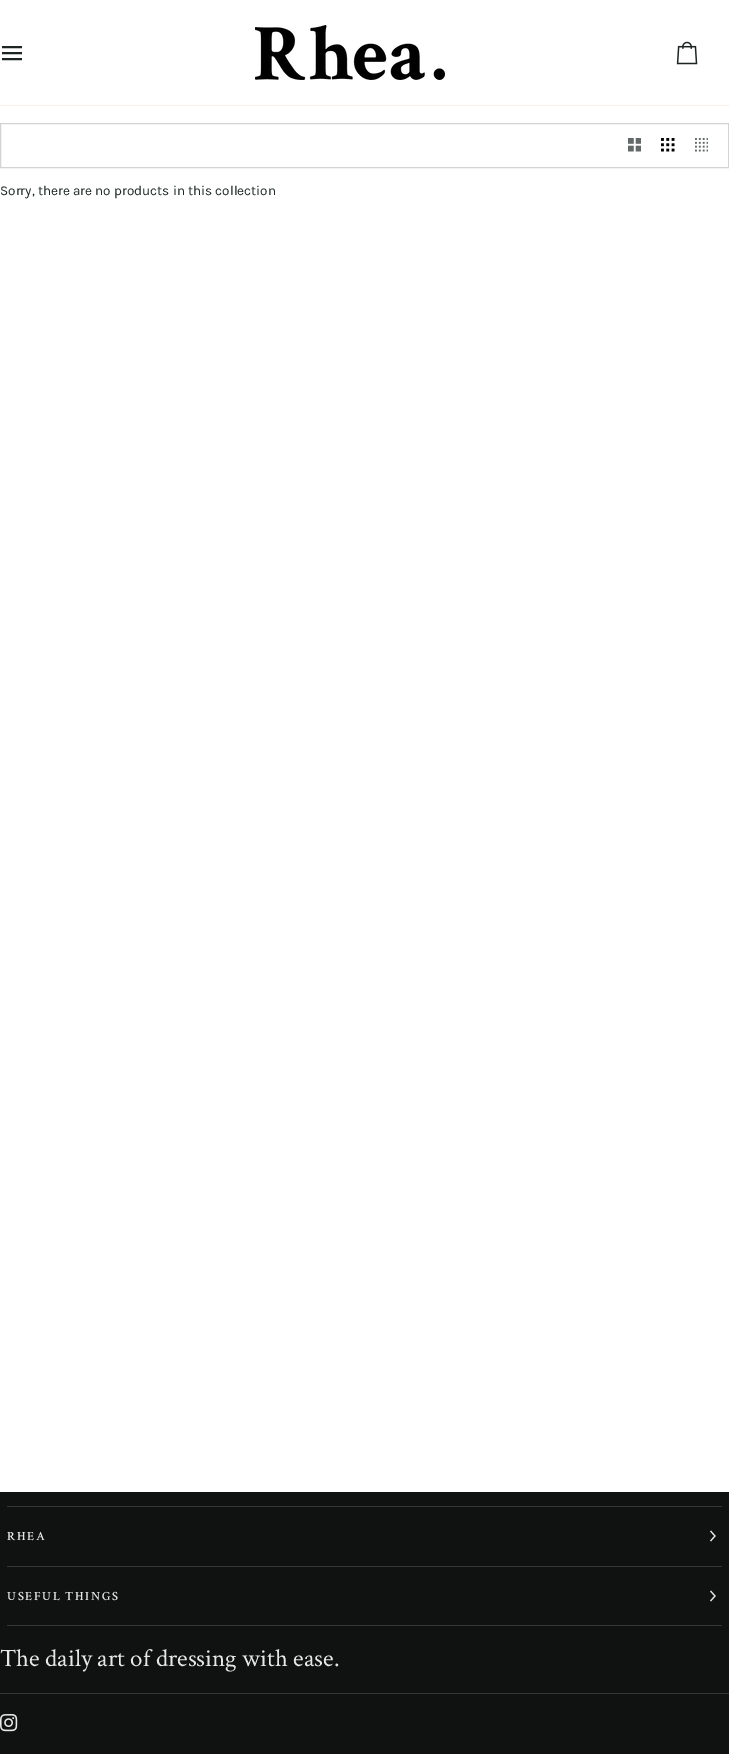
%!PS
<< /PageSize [729 1754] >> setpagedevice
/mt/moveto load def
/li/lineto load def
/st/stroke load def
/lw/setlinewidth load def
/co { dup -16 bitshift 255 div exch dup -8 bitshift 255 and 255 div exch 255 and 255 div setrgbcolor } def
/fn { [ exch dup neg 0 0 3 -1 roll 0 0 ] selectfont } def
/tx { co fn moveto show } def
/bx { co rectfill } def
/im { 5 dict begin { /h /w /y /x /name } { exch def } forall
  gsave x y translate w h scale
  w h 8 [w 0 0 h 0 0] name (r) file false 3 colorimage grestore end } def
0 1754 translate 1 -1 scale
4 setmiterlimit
0 0 729 1754 16#FFFFFF bx
0 105 729 1 16#F8F0E7 bx
16#1D2523 co
2 lw
2 setlinecap
21 47 mt 3 47 li 21 53 mt 3 53 li 21 59 mt 3 59 li st
(media/1.raw) 255 25 190 55 im
(media/2.raw) 676 41 22 24 im
16#D2D4D4 co
1 lw
0 setlinecap
.5 123.5 728 44 rectstroke
(media/3.raw) 628 138 13 14 im
(media/4.raw) 661 138 14 14 im
(media/5.raw) 695 138 13 14 im
0 1492 729 262 16#101211 bx
7 1506 715 1 16#343635 bx
7 1566 715 1 16#343635 bx
16#E7E7E7 co
1.1 lw
2 setlinecap
711 1540.5 mt 715 1536 li 711 1531.5 li st
7 1625 715 1 16#343635 bx
16#E7E7E7 co
711 1600.5 mt 715 1596 li 711 1591.5 li st
0 1693 729 1 16#343635 bx
(media/6.raw) 0 1714 18 18 im
(Sorry, there are no products in this collection) 0 195 /Karla-Regular 13.5 16#1E2927 tx
/CrimsonText-SemiBold 12.5 fn
16#E7E7E7 co
7 1540 mt 1.6 0 (RHEA) ashow
7 1600 mt 1.6 0 (USEFUL THINGS) ashow
(The daily art of dressing with ease.) 0 1666 /CrimsonText-Regular 25 16#E7E7E7 tx
showpage
